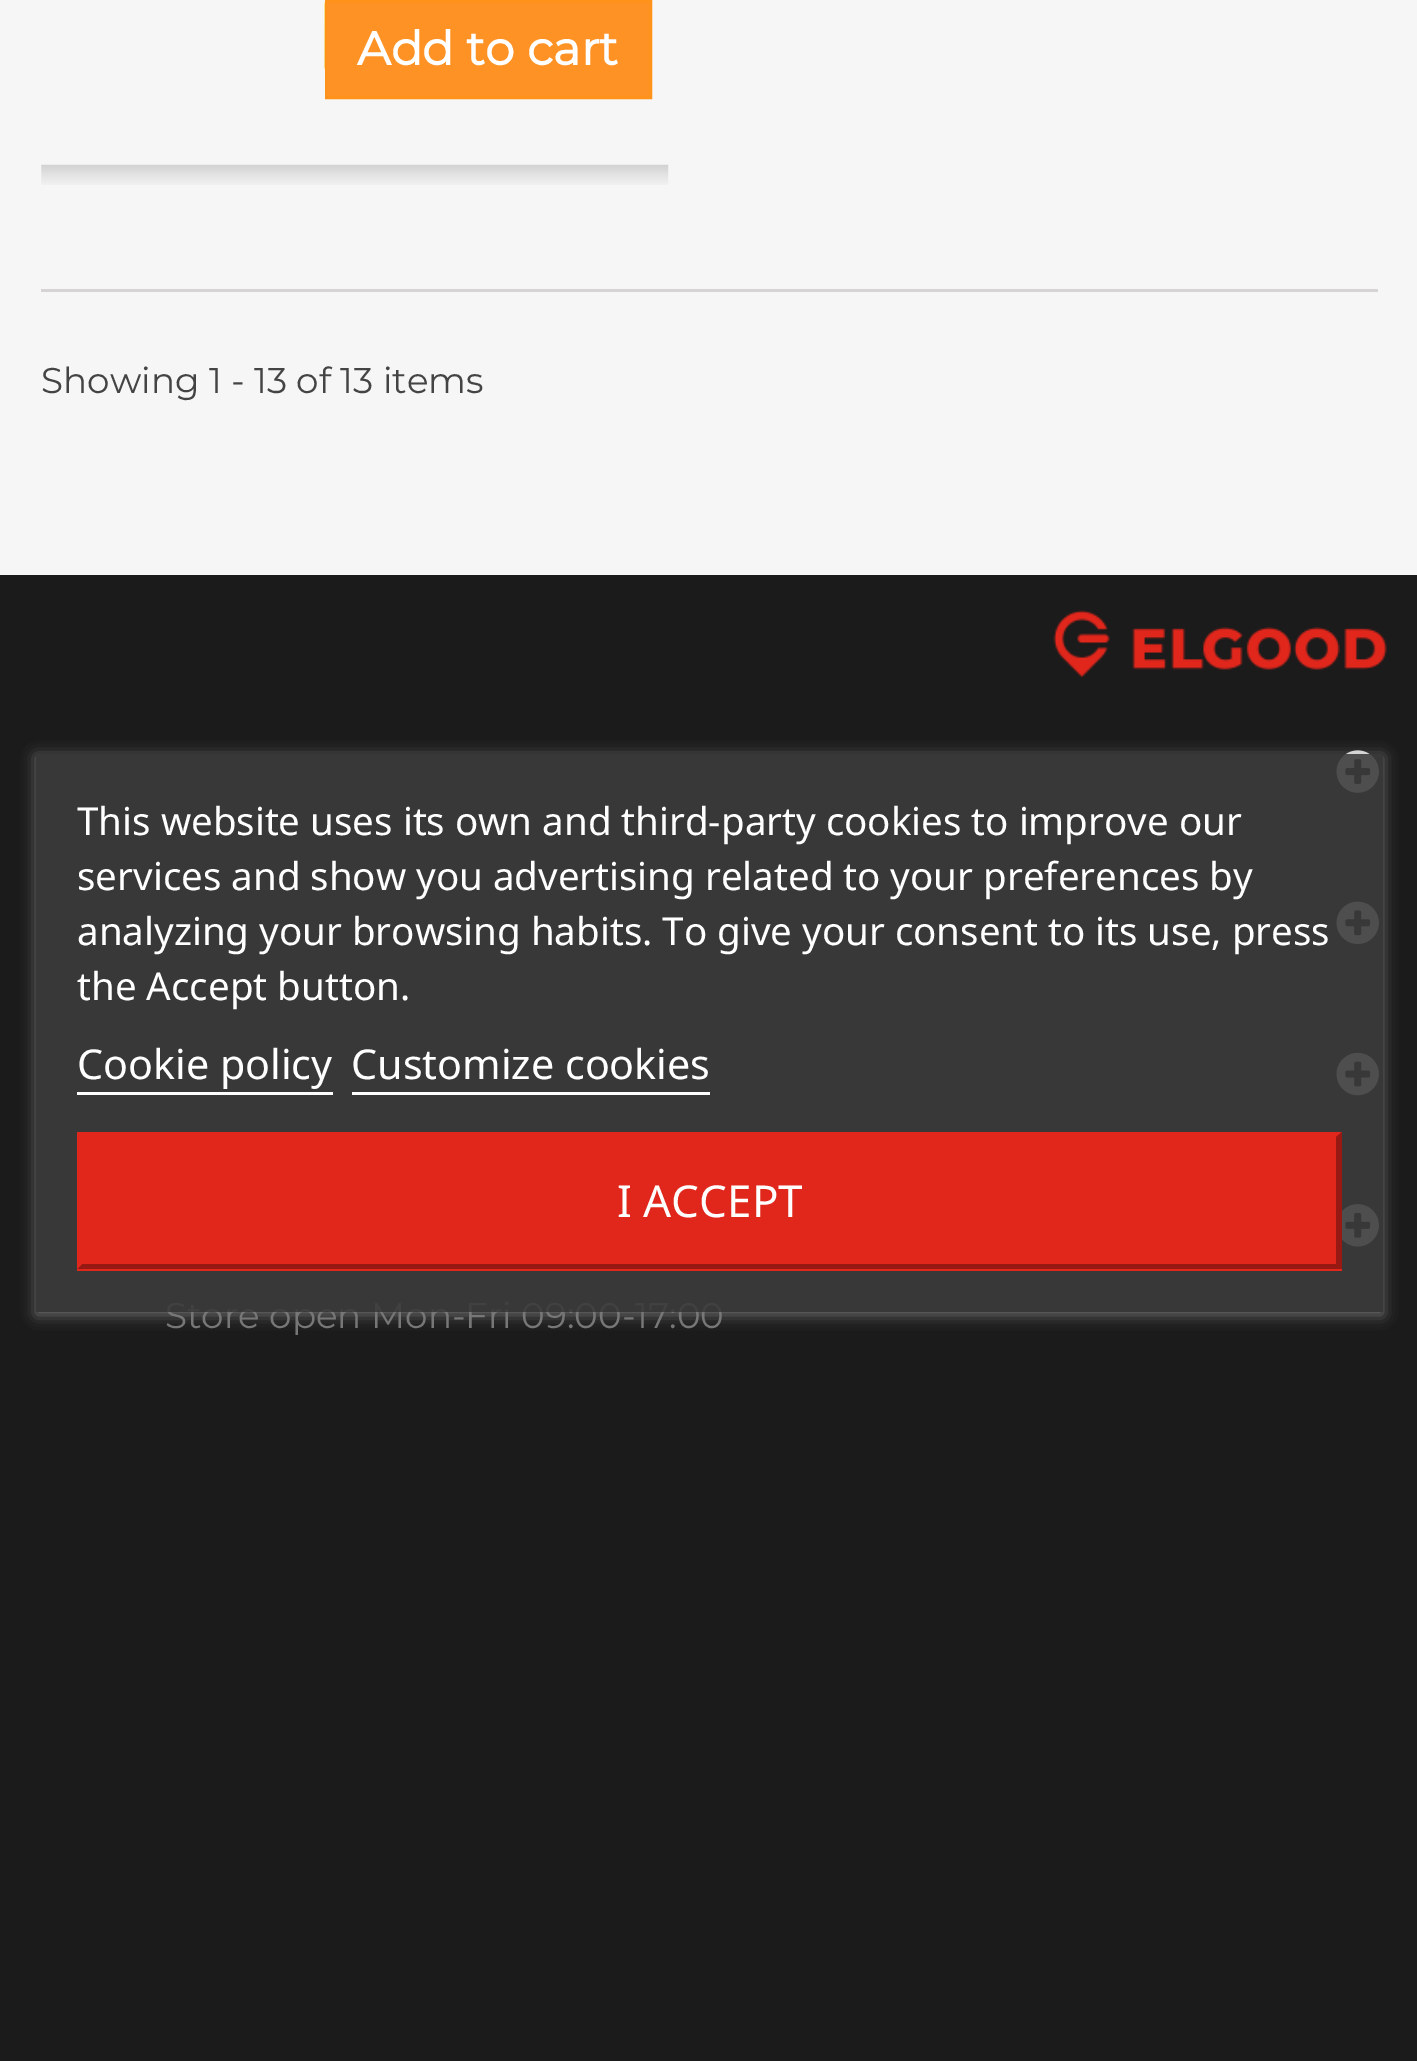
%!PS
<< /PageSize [1417 2061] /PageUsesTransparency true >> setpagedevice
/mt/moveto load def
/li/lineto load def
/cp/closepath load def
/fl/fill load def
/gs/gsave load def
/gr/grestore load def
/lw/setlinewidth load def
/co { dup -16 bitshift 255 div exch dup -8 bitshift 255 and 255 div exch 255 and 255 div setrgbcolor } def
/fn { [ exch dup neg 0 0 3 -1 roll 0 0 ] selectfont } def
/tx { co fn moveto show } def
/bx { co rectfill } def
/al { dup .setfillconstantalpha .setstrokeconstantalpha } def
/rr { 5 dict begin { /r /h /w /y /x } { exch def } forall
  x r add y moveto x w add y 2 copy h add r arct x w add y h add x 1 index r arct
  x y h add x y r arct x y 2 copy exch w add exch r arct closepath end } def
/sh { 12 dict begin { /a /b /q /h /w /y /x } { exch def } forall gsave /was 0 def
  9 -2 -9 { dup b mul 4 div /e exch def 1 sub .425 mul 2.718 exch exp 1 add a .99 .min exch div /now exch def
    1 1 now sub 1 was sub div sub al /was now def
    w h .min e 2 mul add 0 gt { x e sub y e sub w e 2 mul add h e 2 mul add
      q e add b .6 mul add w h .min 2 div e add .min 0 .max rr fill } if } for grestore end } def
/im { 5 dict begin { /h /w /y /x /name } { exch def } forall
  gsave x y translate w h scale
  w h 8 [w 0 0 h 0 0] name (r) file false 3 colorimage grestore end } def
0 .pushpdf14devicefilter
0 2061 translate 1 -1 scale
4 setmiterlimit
0 0 1417 2061 16#F6F6F6 bx
(media/1.raw) 324 2 1 68 im
16#FF921A co
3 lw
326.5 1.5 324 96 rectstroke
327 3 322 93 16#FF9224 bx
(media/2.raw) 41 164 628 21 im
41 289 1337 3 16#D6D4D4 bx
0 575 1417 1486 16#1B1B1B bx
(media/3.raw) 1053 610 334 68 im
(media/4.raw) 1336 750 43 43 im
(media/5.raw) 1336 901 43 43 im
(media/6.raw) 1336 1052 43 44 im
(media/7.raw) 1342 1204 37 43 im
gs
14 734 mt 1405 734 li 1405 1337 li 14 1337 li cp 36 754 mt 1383 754 li 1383 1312 li 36 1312 li cp eoclip newpath
16#707070 co
36 756 1347 559 0 7 1 sh
gr
(Add to cart) 357 65 /Montserrat-Bold 46.75 16#FFFFFF tx
(Showing 1 - 13 of 13 items) 41 393 /Montserrat-Thin 35.75 16#444444 tx
(Store open Mon-Fri 09:00-17:00) 165 1328 /Montserrat-Thin 35.75 16#777777 tx
0.9 al
36 754 1347 558 16#3B3B3B bx
1 al
(Customize cookies) 351 1079 /NotoSans-Regular 41.25 16#FFFFFF tx
352 1092 358 3 16#FFFFFF bx
(Cookie policy) 77 1079 /NotoSans-Regular 41.25 16#FFFFFF tx
77 1092 256 3 16#FFFFFF bx
(the Accept button.) 77 1000 /NotoSans-Regular 38.5 16#FFFFFF tx
(analyzing your browsing habits. To give your consent to its use, press) 77 945 /NotoSans-Regular 38.5 16#FFFFFF tx
(services and show you advertising related to your preferences by) 77 890 /NotoSans-Regular 38.5 16#FFFFFF tx
(This website uses its own and third-party cookies to improve our) 77 835 /NotoSans-Regular 38.5 16#FFFFFF tx
77 1133 1265 138 16#E1261C bx
(I ACCEPT) 617 1217 /NotoSans-Regular 44 16#FFFFFF tx
16#E1261C co
77 1132 mt 1342 1132 li 1336 1137 li 82 1137 li cp fl
16#961913 co
1342 1132 mt 1342 1269 li 1336 1264 li 1336 1137 li cp fl
1342 1269 mt 77 1269 li 82 1264 li 1336 1264 li cp fl
16#E1261C co
77 1269 mt 77 1132 li 82 1137 li 82 1264 li cp fl
.poppdf14devicefilter showpage
